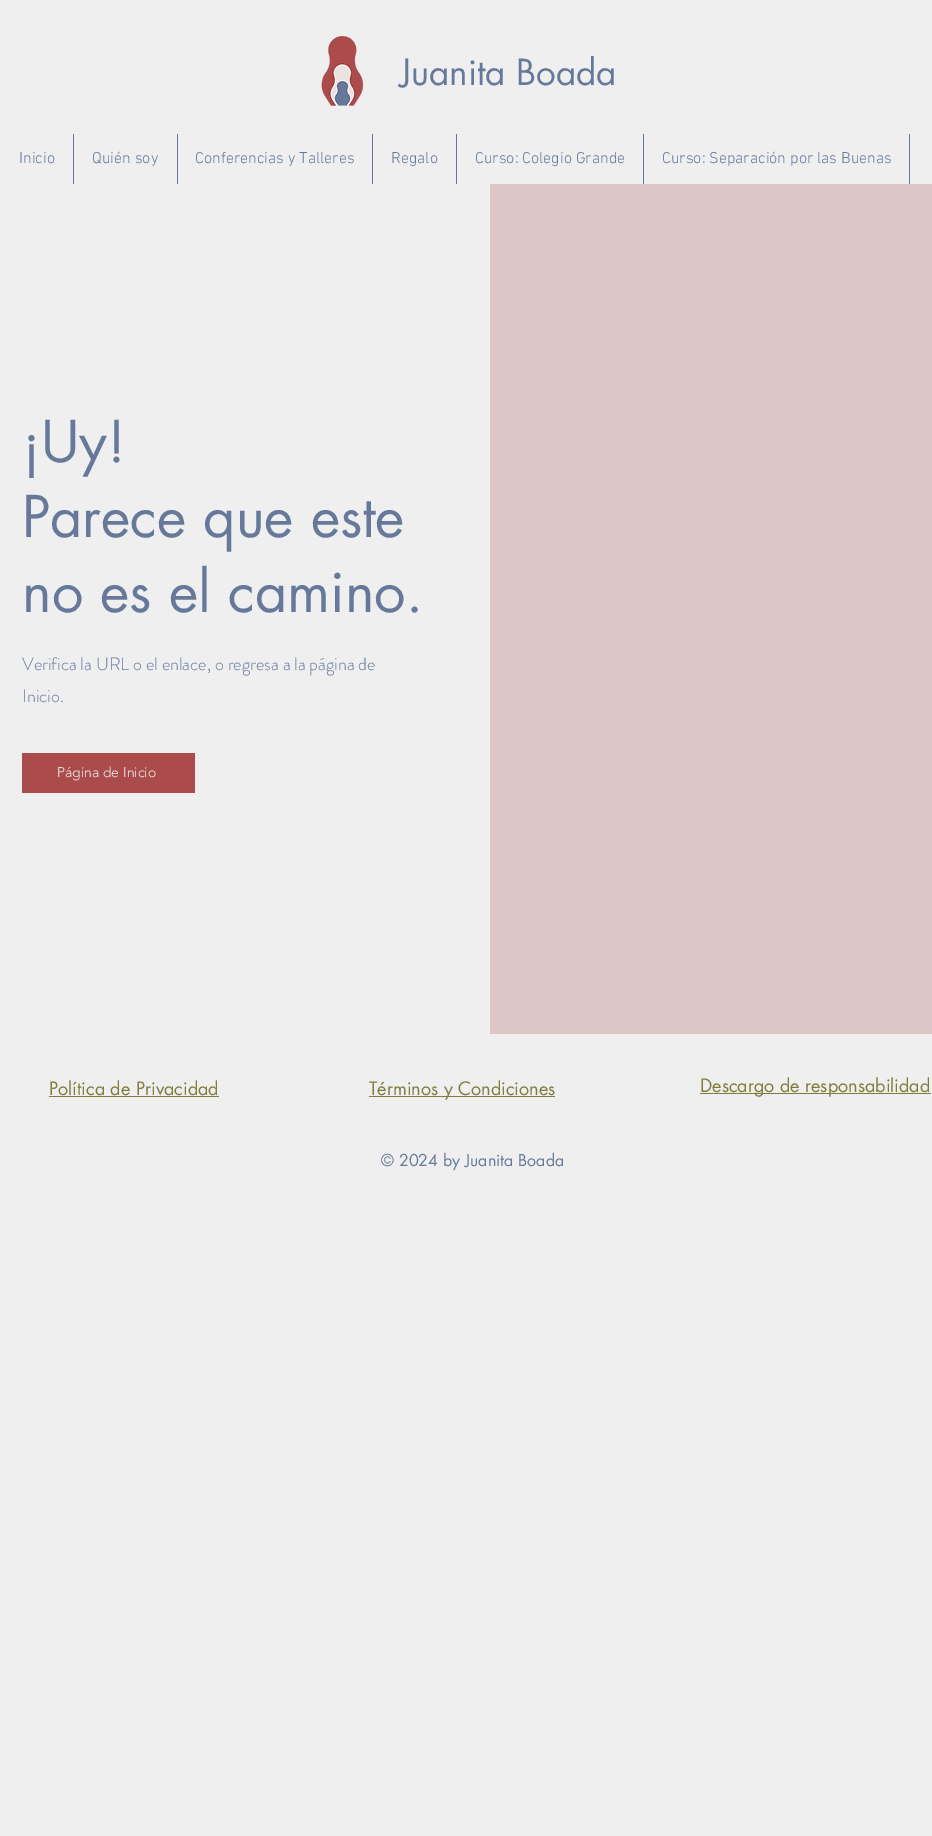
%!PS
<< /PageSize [932 1836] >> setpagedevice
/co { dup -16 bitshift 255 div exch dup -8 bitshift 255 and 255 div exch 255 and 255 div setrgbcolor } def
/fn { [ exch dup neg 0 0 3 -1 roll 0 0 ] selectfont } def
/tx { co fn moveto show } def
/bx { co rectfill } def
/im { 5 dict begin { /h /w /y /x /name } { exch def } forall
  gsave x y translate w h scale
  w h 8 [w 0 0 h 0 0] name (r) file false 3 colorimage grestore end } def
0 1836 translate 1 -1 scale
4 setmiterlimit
0 0 932 1836 16#EFEFEF bx
(media/1.raw) 321 36 43 70 im
73 134 1 50 16#66799B bx
177 134 1 50 16#66799B bx
372 134 1 50 16#66799B bx
456 134 1 50 16#66799B bx
643 134 1 50 16#66799B bx
909 134 1 50 16#66799B bx
22 753 173 40 16#AB4B4B bx
490 184 442 850 16#DEC6C6 bx
49 1096 170 1 16#807D3C bx
369 1096 186 1 16#807D3C bx
700 1093 231 1 16#807D3C bx
(Juanita Boada) 400 85 /futura-Regular 35 16#66799B tx
(Inicio) 19 163 /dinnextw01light-Light 16 16#66799B tx
(Quién soy) 92 163 /dinnextw01light-Light 16 16#66799B tx
(Conferencias y Talleres) 195 163 /dinnextw01light-Light 16 16#66799B tx
(Regalo) 391 163 /dinnextw01light-Light 16 16#66799B tx
(Curso: Colegio Grande) 475 163 /dinnextw01light-Light 16 16#66799B tx
(Curso: Separación por las Buenas) 662 163 /dinnextw01light-Light 16 16#66799B tx
(¡Uy!) 22 462 /futura-Regular 56 16#66799B tx
(Parece que este) 22 537 /futura-Regular 56 16#66799B tx
(no es el camino.) 22 612 /futura-Regular 56 16#66799B tx
(Verifica la URL o el enlace, o regresa a la página de) 22 670 /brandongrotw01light-Light 18 16#66799B tx
(Inicio.) 22 702 /brandongrotw01light-Light 18 16#66799B tx
(Página de Inicio) 57 777 /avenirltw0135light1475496-Light 14 16#EFEFEF tx
(Política de Privacidad) 49 1095 /futura-Regular 18 16#807D3C tx
(Términos y Condiciones) 369 1095 /futura-Regular 18 16#807D3C tx
(Descargo de responsabilidad) 700 1092 /futura-Regular 18 16#807D3C tx
(© 2024 by Juanita Boada) 381 1166 /futura-Regular 16 16#66799B tx
showpage
